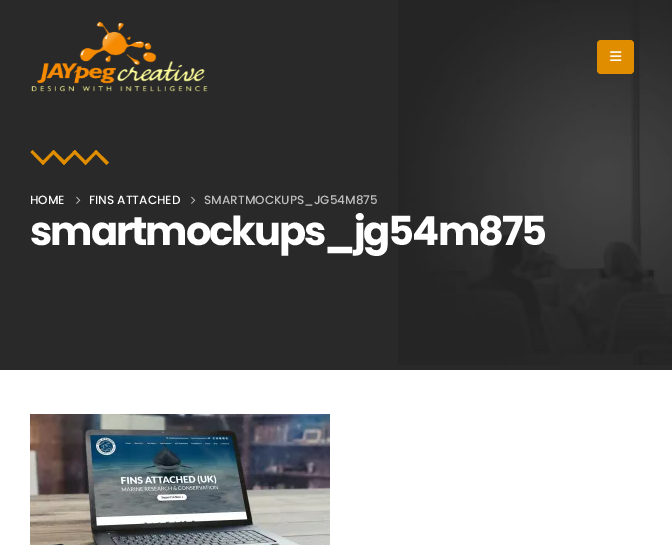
%!PS
<< /PageSize [672 545] >> setpagedevice
/mt/moveto load def
/li/lineto load def
/cp/closepath load def
/fl/fill load def
/co { dup -16 bitshift 255 div exch dup -8 bitshift 255 and 255 div exch 255 and 255 div setrgbcolor } def
/fn { [ exch dup neg 0 0 3 -1 roll 0 0 ] selectfont } def
/tx { co fn moveto show } def
/bx { co rectfill } def
/rr { 5 dict begin { /r /h /w /y /x } { exch def } forall
  x r add y moveto x w add y 2 copy h add r arct x w add y h add x 1 index r arct
  x y h add x y r arct x y 2 copy exch w add exch r arct closepath end } def
/im { 5 dict begin { /h /w /y /x /name } { exch def } forall
  gsave x y translate w h scale
  w h 8 [w 0 0 h 0 0] name (r) file false 3 colorimage grestore end } def
0 545 translate 1 -1 scale
4 setmiterlimit
0 0 672 545 16#FFFFFF bx
0 0 672 370 16#292929 bx
(media/1.raw) 31 21 177 71 im
(media/3.raw) 398 0 274 365 im
16#E08E00 co
597 40 37 34 4 rr fl
(media/2.raw) 610 51 12 10 im
94 152 mt 96 150 li 109 162.5 li 106.5 165 li cp fl
83.5 162.5 mt 96 150 li 98 152 li 85.5 165 li cp fl
72.5 152 mt 75 150 li 87.5 162.5 li 85.5 165 li cp fl
62 162.5 mt 75 150 li 77 152 li 64 165 li cp fl
51.5 152 mt 53.5 150 li 66.5 162.5 li 64 165 li cp fl
41 162.5 mt 53.5 150 li 55.5 152 li 43 165 li cp fl
30.5 152 mt 32.5 150 li 45 162.5 li 43 165 li 37 159 li cp fl
(media/4.raw) 76 196 5 8 im
(media/4.raw) 191 196 5 8 im
(media/5.raw) 30 414 300 131 im
(HOME) 30 204 /Poppins-Medium 12 16#FFFFFF tx
(FINS ATTACHED) 89 204 /Poppins-Medium 12 16#FFFFFF tx
(SMARTMOCKUPS_JG54M875) 204 204 /Poppins-Medium 12 16#BFBFBF tx
/Poppins-Bold 40 fn
16#FFFFFF co
30 245 mt -2 0 (smartmockups_jg54m875) ashow
showpage
